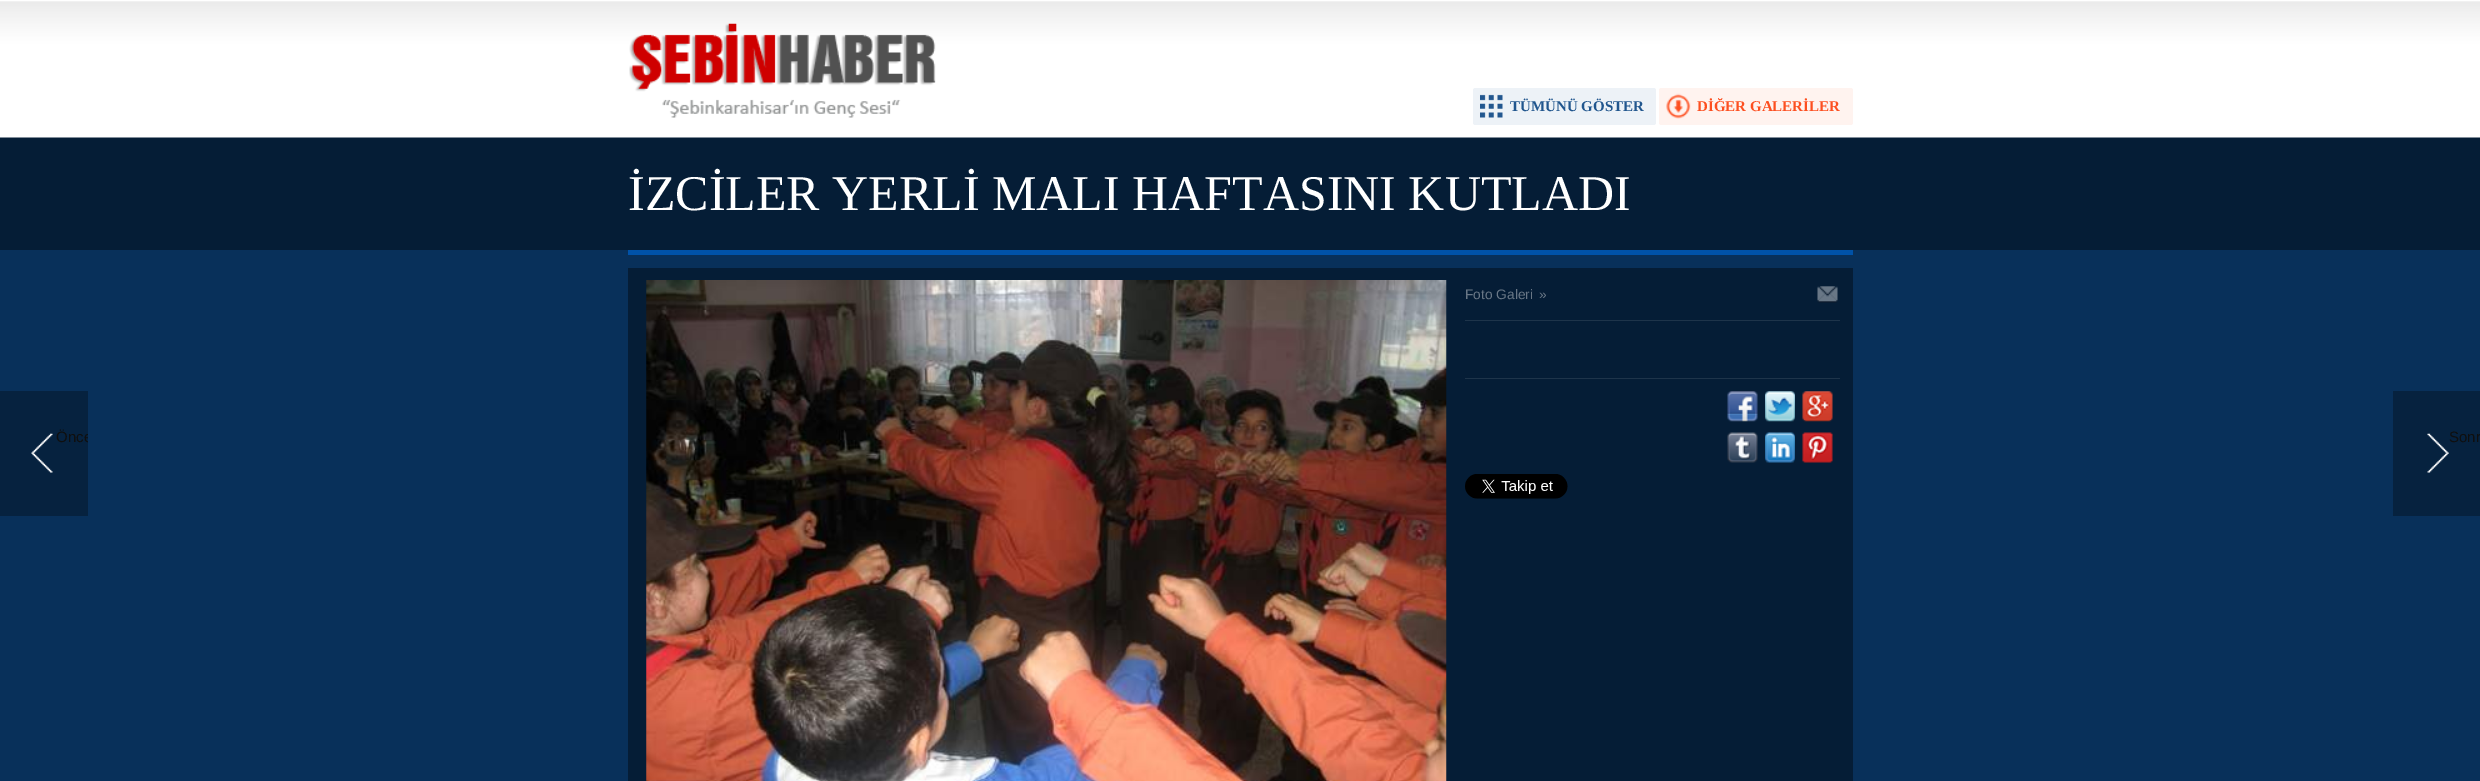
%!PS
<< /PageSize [2480 781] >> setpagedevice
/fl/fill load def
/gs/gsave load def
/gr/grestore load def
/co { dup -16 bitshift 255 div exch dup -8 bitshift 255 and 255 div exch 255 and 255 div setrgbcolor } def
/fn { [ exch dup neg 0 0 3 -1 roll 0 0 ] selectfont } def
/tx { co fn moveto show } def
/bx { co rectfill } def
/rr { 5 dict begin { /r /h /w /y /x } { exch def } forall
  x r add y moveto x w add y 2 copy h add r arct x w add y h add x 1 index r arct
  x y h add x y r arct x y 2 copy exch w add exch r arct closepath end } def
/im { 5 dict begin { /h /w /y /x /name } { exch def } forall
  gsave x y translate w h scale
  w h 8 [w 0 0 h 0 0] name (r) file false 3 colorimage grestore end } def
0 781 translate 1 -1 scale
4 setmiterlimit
0 0 2480 781 16#08305A bx
(media/1.raw) 0 0 2480 250 im
(media/2.raw) 629 23 307 95 im
16#EDF2F7 co
1473 88 183 37 2.5 rr fl
(media/3.raw) 1480 94 23 24 im
16#FFF3EF co
1659 88 194 37 2.5 rr fl
(media/4.raw) 1666 93 25 26 im
628 250 1225 5 16#0052A8 bx
628 268 1225 513 16#051D36 bx
(media/5.raw) 646 280 801 501 im
(media/6.raw) 1817 286 21 17 im
1465 320 375 1 16#1E344A bx
1465 378 375 1 16#1E344A bx
(media/7.raw) 1727 391 31 31 im
(media/8.raw) 1765 391 30 31 im
(media/9.raw) 1802 391 31 31 im
(media/10.raw) 1727 432 31 31 im
(media/11.raw) 1765 432 30 31 im
(media/12.raw) 1802 432 31 31 im
(media/13.raw) 1465 474 103 25 im
0 391 88 125 16#06223F bx
(media/14.raw) 31 433 22 40 im
2393 391 87 125 16#06223F bx
(media/15.raw) 2427 433 22 40 im
(TÜMÜNÜ GÖSTER) 1510 111 /LiberationSerif-Bold 15 16#21568E tx
(DİĞER GALERİLER) 1697 111 /LiberationSerif-Bold 15 16#FD4F20 tx
(İZCİLER YERLİ MALI HAFTASINI KUTLADI) 628 210 /LiberationSerif-Regular 50 16#FFFFFF tx
(Foto Galeri) 1465 299 /LiberationSans-Regular 13.75 16#697786 tx
(») 1539 299 /LiberationSans-Regular 13.75 16#697786 tx
gs
0 391 88 125 rectclip
(Önce) 56 442 /LiberationSans-Regular 15 16#0F0F0F tx
gr
(Sonr) 2449 442 /LiberationSans-Regular 15 16#0F0F0F tx
showpage
